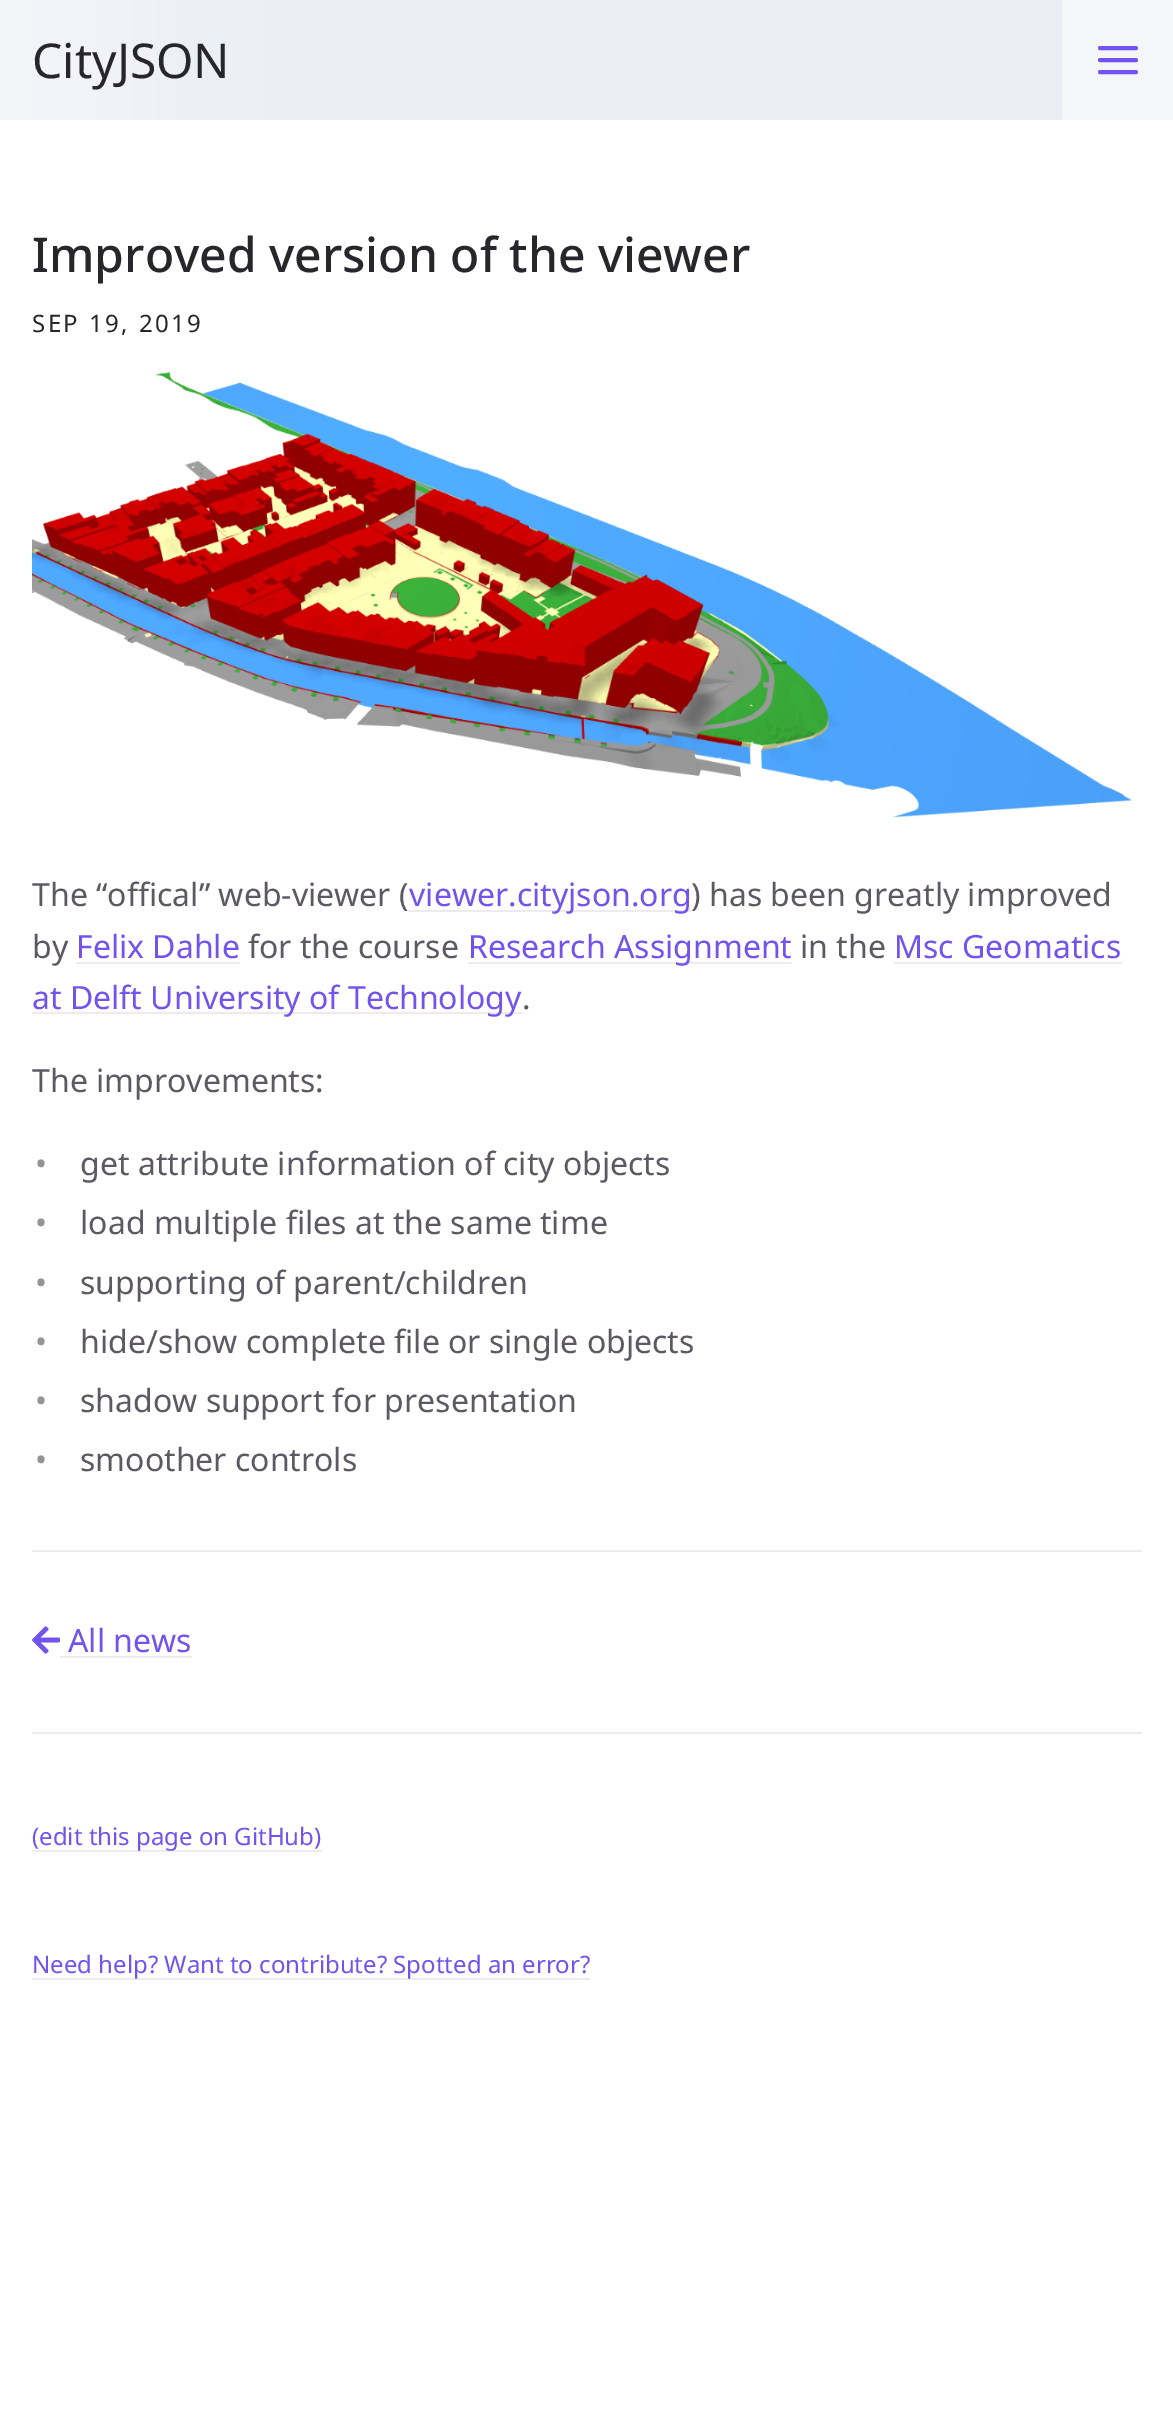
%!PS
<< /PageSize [1173 2419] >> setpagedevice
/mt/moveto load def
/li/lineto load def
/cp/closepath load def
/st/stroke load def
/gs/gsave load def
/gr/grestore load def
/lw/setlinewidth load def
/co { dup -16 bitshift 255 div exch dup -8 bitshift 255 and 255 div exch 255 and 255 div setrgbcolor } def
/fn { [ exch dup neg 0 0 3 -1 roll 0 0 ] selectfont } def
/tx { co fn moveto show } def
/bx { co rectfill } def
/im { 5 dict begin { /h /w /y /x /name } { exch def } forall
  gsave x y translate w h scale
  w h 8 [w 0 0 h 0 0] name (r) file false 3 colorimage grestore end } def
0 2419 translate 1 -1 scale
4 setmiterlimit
0 0 1173 2419 16#FFFFFF bx
1062 0 111 120 16#F5F6FA bx
gs 0 0 mt 1062 0 li 1062 120 li 0 120 li cp clip newpath
<< /ShadingType 2 /ColorSpace /DeviceRGB /Coords [1062 60 0 60] /Extend [true true] /Function << /FunctionType 3 /Domain [0 1] /Functions [<< /FunctionType 2 /Domain [0 1] /C0 [.922 .929 .961] /C1 [.929 .937 .965] /N 1 >> << /FunctionType 2 /Domain [0 1] /C0 [.929 .937 .965] /C1 [.961 .965 .98] /N 1 >>] /Bounds [.8] /Encode [0 1 0 1] >> >> shfill gr
16#7253ED co
4 lw
1 setlinecap
1 setlinejoin
1100 60 mt 1136 60 li 1100 48 mt 1136 48 li 1100 72 mt 1136 72 li st
32 1978 558 2 16#EEEBEE bx
(media/1.raw) 32 371 1100 447 im
408 910 284 2 16#EEEBEE bx
76 962 164 2 16#EEEBEE bx
468 962 324 2 16#EEEBEE bx
894 962 228 2 16#EEEBEE bx
32 1012 490 2 16#EEEBEE bx
32 1550 1110 2 16#EEEBEE bx
(media/2.raw) 32 1626 29 28 im
60 1656 132 2 16#EEEBEE bx
32 1732 1110 2 16#EEEBEE bx
32 1850 290 2 16#EEEBEE bx
(CityJSON) 32 78 /NotoSans-Regular 48 16#27262B tx
(Need help? Want to contribute? Spotted an error?) 32 1973 /NotoSans-Regular 24 16#7253ED tx
(Improved version of the viewer) 32 272 /NotoSans-Medium 48 16#27262B tx
/NotoSans-Regular 24 fn
32 332 mt 2.4 0 (SEP 19, 2019) ashow
(The “offical” web-viewer \() 32 906 /NotoSans-Regular 32 16#5C5962 tx
(viewer.cityjson.org) 409 906 /NotoSans-Regular 32 16#7253ED tx
(\) has been greatly improved) 691 906 /NotoSans-Regular 32 16#5C5962 tx
(by) 32 958 /NotoSans-Regular 32 16#5C5962 tx
(Felix Dahle) 76 958 /NotoSans-Regular 32 16#7253ED tx
(for the course) 248 958 /NotoSans-Regular 32 16#5C5962 tx
(Research Assignment) 468 958 /NotoSans-Regular 32 16#7253ED tx
(in the) 800 958 /NotoSans-Regular 32 16#5C5962 tx
(Msc Geomatics) 894 958 /NotoSans-Regular 32 16#7253ED tx
(at Delft University of Technology) 32 1009 /NotoSans-Regular 32 16#7253ED tx
(.) 522 1009 /NotoSans-Regular 32 16#5C5962 tx
(The improvements:) 32 1092 /NotoSans-Regular 32 16#5C5962 tx
(•) 35 1175 /NotoSans-Regular 32 16#959396 tx
(get attribute information of city objects) 80 1175 /NotoSans-Regular 32 16#5C5962 tx
(•) 35 1234 /NotoSans-Regular 32 16#959396 tx
(load multiple files at the same time) 80 1234 /NotoSans-Regular 32 16#5C5962 tx
(•) 35 1294 /NotoSans-Regular 32 16#959396 tx
(supporting of parent/children) 80 1294 /NotoSans-Regular 32 16#5C5962 tx
(•) 35 1353 /NotoSans-Regular 32 16#959396 tx
(hide/show complete file or single objects) 80 1353 /NotoSans-Regular 32 16#5C5962 tx
(•) 35 1412 /NotoSans-Regular 32 16#959396 tx
(shadow support for presentation) 80 1412 /NotoSans-Regular 32 16#5C5962 tx
(•) 35 1471 /NotoSans-Regular 32 16#959396 tx
(smoother controls) 80 1471 /NotoSans-Regular 32 16#5C5962 tx
(All news) 68 1652 /NotoSans-Regular 32 16#7253ED tx
(\(edit this page on GitHub\)) 32 1845 /NotoSans-Regular 24 16#7253ED tx
showpage
